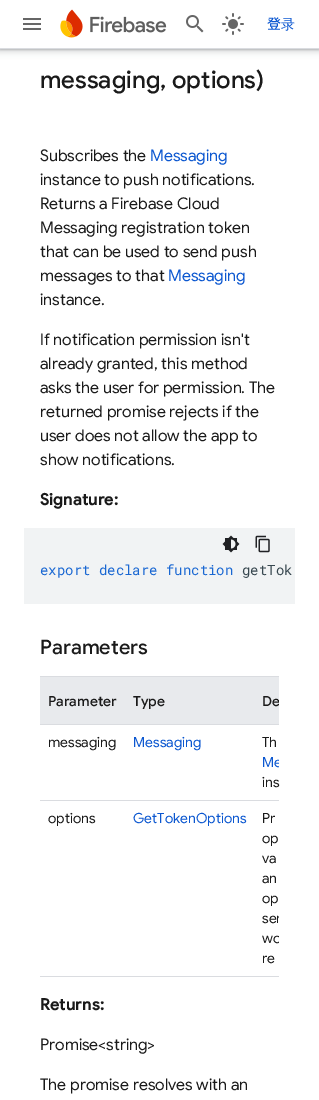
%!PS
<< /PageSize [319 1100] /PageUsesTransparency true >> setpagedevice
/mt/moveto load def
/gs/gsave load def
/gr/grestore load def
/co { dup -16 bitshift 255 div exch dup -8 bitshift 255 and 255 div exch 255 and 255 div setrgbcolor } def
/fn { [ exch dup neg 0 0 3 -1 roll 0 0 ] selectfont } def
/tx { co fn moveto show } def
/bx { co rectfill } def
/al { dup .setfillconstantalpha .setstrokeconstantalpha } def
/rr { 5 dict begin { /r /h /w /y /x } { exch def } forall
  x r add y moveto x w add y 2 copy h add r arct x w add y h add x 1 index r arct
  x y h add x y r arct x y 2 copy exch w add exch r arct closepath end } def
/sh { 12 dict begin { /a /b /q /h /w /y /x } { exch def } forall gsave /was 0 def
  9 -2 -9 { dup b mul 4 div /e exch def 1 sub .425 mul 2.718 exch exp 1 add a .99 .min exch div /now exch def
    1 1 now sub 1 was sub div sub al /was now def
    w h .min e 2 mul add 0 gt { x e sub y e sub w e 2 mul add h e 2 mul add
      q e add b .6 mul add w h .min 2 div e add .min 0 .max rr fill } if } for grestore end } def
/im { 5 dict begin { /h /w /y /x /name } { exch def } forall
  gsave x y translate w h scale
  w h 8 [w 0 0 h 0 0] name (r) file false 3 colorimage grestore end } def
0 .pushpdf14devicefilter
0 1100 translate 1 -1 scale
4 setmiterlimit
0 0 319 1100 16#FFFFFF bx
16#3C4043 co
-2 -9 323 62 0 3 .15 sh
0 -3 319 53 0 1 .3 sh
0 0 319 48 16#FFFFFF bx
0 48 319 1 16#DADCE0 bx
(media/1.raw) 23 18 18 12 im
(media/2.raw) 60 9 107 29 im
(media/3.raw) 186 15 18 18 im
(media/4.raw) 222 13 22 22 im
24 528 271 76 16#F1F3F4 bx
(media/5.raw) 222 535 18 18 im
(media/6.raw) 255 535 15 18 im
40 676 239 1 16#DADCE0 bx
40 677 239 47 16#E8EAED bx
40 724 239 1 16#DADCE0 bx
40 800 239 1 16#DADCE0 bx
40 976 239 1 16#DADCE0 bx
(登) 267 29 /NotoSansJP-Medium 14 16#0B57D0 tx
(录) 281 29 /WenQuanYiZenHei-Medium 14 16#0B57D0 tx
(messaging, options\)) 40 88 /GoogleSans-Medium 24 16#1A1A1A tx
(Subscribes the) 40 161 /GoogleSans-Regular 16 16#1A1A1A tx
(Messaging) 150 161 /GoogleSans-Regular 16 16#0B57D0 tx
(instance to push notifications.) 40 185 /GoogleSans-Regular 16 16#1A1A1A tx
(Returns a Firebase Cloud) 40 209 /GoogleSans-Regular 16 16#1A1A1A tx
(Messaging registration token) 40 233 /GoogleSans-Regular 16 16#1A1A1A tx
(that can be used to send push) 40 257 /GoogleSans-Regular 16 16#1A1A1A tx
(messages to that) 40 281 /GoogleSans-Regular 16 16#1A1A1A tx
(Messaging) 168 281 /GoogleSans-Regular 16 16#0B57D0 tx
(instance.) 40 305 /GoogleSans-Regular 16 16#1A1A1A tx
(If notification permission isn't) 40 345 /GoogleSans-Regular 16 16#1A1A1A tx
(already granted, this method) 40 369 /GoogleSans-Regular 16 16#1A1A1A tx
(asks the user for permission. The) 40 393 /GoogleSans-Regular 16 16#1A1A1A tx
(returned promise rejects if the) 40 417 /GoogleSans-Regular 16 16#1A1A1A tx
(user does not allow the app to) 40 441 /GoogleSans-Regular 16 16#1A1A1A tx
(show notifications.) 40 465 /GoogleSans-Regular 16 16#1A1A1A tx
/GoogleSans-Bold 16 fn
40 505 mt .25 0 (Signature:) ashow
(export declare function) 40 575 /RobotoMono-Regular 14 16#1967D2 tx
(getTok) 242 575 /RobotoMono-Regular 14 16#37474F tx
(Parameters) 40 654 /GoogleSans-Medium 20 16#1A1A1A tx
(Parameter) 48 706 /GoogleSans-Medium 14 16#1A1A1A tx
(Type) 133 706 /GoogleSans-Medium 14 16#1A1A1A tx
gs
40 676 239 301 rectclip
(De) 262 706 /GoogleSans-Medium 14 16#1A1A1A tx
gr
(messaging) 48 747 /GoogleSans-Regular 14 16#1A1A1A tx
(Messaging) 133 747 /GoogleSans-Regular 14 16#0B57D0 tx
(Th) 262 747 /GoogleSans-Regular 14 16#1A1A1A tx
gs
40 676 239 301 rectclip
(Me) 262 767 /GoogleSans-Regular 14 16#0B57D0 tx
gr
(ins) 262 787 /GoogleSans-Regular 14 16#1A1A1A tx
(options) 48 823 /GoogleSans-Regular 14 16#1A1A1A tx
(GetTokenOptions) 133 823 /GoogleSans-Regular 14 16#0B57D0 tx
(Pr) 262 823 /GoogleSans-Regular 14 16#1A1A1A tx
(op) 262 843 /GoogleSans-Regular 14 16#1A1A1A tx
(va) 262 863 /GoogleSans-Regular 14 16#1A1A1A tx
(an) 262 883 /GoogleSans-Regular 14 16#1A1A1A tx
(op) 262 903 /GoogleSans-Regular 14 16#1A1A1A tx
gs
40 676 239 301 rectclip
(ser) 262 923 /GoogleSans-Regular 14 16#1A1A1A tx
(wo) 262 943 /GoogleSans-Regular 14 16#1A1A1A tx
gr
(re) 262 963 /GoogleSans-Regular 14 16#1A1A1A tx
/GoogleSans-Bold 16 fn
40 1010 mt .25 0 (Returns:) ashow
(Promise<string>) 40 1050 /GoogleSans-Regular 16 16#1A1A1A tx
(The promise resolves with an) 40 1090 /GoogleSans-Regular 16 16#1A1A1A tx
.poppdf14devicefilter showpage
